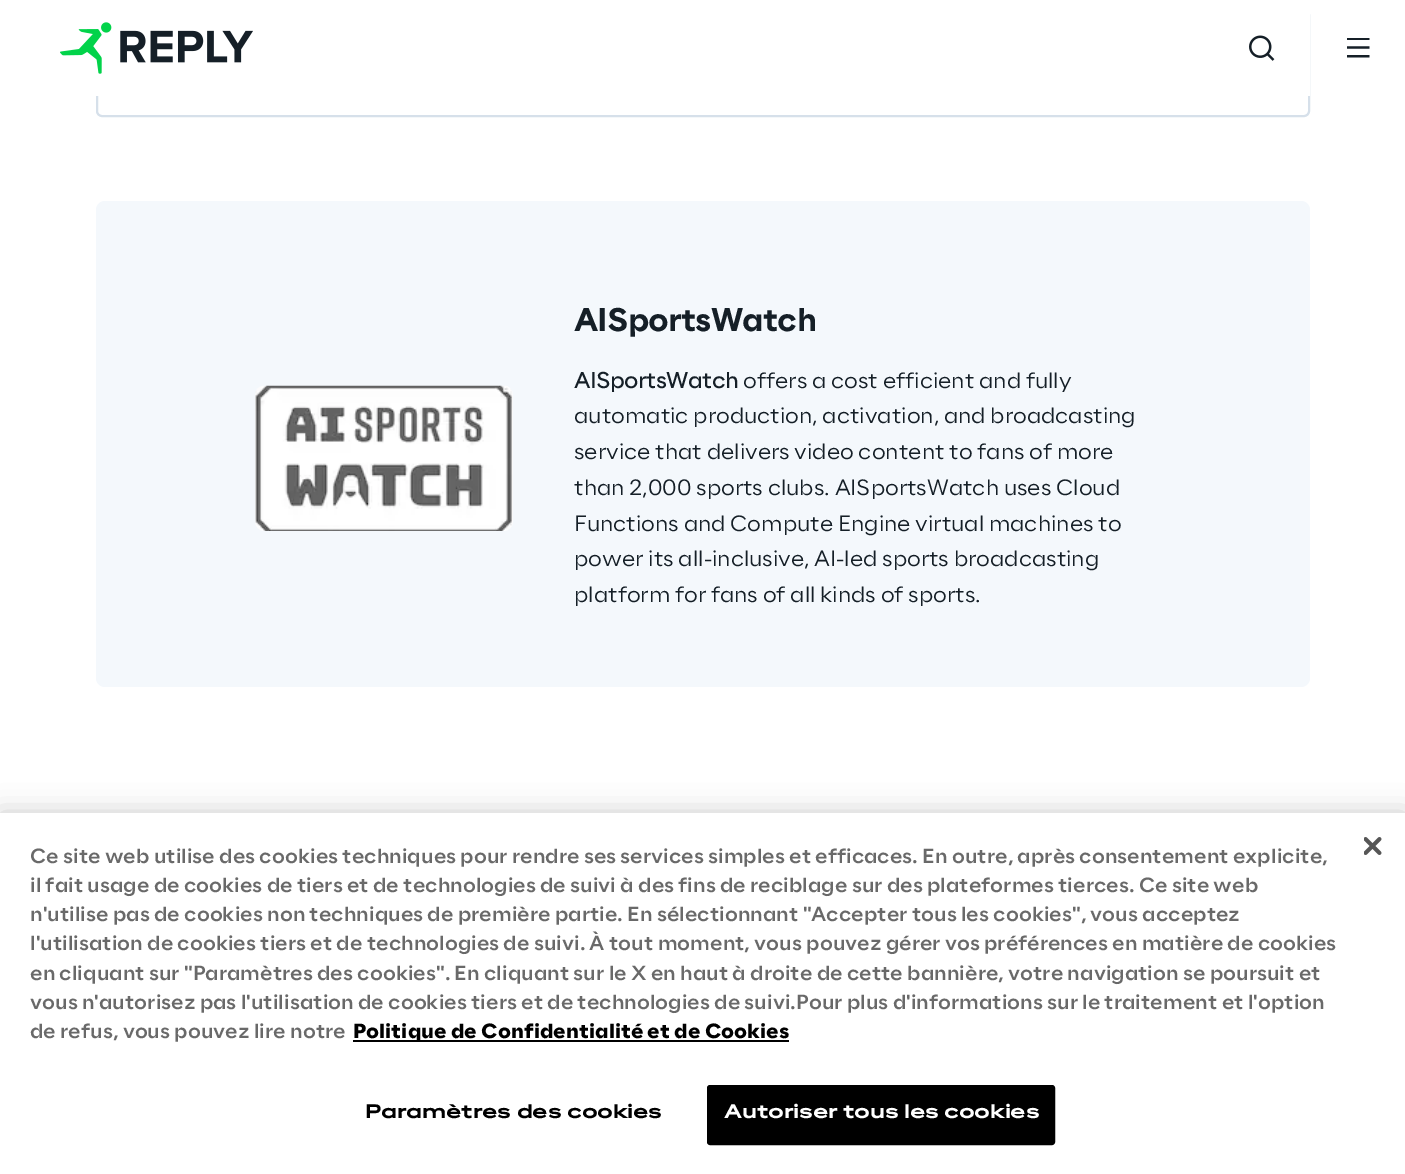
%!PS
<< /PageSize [1405 1174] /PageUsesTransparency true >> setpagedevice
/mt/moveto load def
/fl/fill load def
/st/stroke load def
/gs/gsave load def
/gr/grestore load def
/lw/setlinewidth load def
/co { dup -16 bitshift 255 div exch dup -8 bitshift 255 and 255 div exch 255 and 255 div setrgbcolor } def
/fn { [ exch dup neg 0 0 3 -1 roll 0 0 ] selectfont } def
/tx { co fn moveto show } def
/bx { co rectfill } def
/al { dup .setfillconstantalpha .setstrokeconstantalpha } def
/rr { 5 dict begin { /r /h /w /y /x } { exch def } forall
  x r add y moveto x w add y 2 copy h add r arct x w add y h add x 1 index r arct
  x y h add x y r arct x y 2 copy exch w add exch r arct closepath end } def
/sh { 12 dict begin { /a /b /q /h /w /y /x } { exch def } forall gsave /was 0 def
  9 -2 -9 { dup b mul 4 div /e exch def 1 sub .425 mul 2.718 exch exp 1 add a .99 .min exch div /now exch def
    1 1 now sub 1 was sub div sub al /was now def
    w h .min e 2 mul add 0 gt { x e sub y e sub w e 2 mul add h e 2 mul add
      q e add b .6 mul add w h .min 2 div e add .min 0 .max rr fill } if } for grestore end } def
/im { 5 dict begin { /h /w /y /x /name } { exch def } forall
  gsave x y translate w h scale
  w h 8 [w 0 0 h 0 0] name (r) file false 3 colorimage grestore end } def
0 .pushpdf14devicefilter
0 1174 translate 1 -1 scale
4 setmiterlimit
0 0 1405 1174 16#FFFFFF bx
16#D6E0EA co
2 lw
97 10 1212 106 5 rr st
96 9 1214 87 16#FFFFFF bx
(media/1.raw) 60 22 193 52 im
(media/2.raw) 1249 35 26 26 im
(media/3.raw) 1347 38 23 20 im
16#F4F8FC co
96 201 1214 486 9 rr fl
(media/4.raw) 255 385 258 146 im
16#000000 co
0 813 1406 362 0 13.5 .2 sh
0 813 1405 361 16#FFFFFF bx
(media/5.raw) 1364 837 18 18 im
353 1040 436 2 16#000000 bx
708 1086 346 58 2 rr gs fl gr
st
(AISportsWatch) 574 331 /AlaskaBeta-Bold 30 16#151F27 tx
(AISportsWatch) 574 388 /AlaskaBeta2-Bold 21 16#151F27 tx
(offers a cost efficient and fully) 743 388 /AlaskaBeta-Light 21 16#151F27 tx
(automatic production, activation, and broadcasting) 574 423 /AlaskaBeta-Light 21 16#151F27 tx
(service that delivers video content to fans of more) 574 459 /AlaskaBeta-Light 21 16#151F27 tx
(than 2,000 sports clubs. AISportsWatch uses Cloud) 574 495 /AlaskaBeta-Light 21 16#151F27 tx
(Functions and Compute Engine virtual machines to) 574 531 /AlaskaBeta-Light 21 16#151F27 tx
(power its all-inclusive, AI-led sports broadcasting) 574 566 /AlaskaBeta-Light 21 16#151F27 tx
(platform for fans of all kinds of sports.) 574 602 /AlaskaBeta-Light 21 16#151F27 tx
(Ce site web utilise des cookies techniques pour rendre ses services simples et efficaces. En outre, après consentement explicite,) 30 863 /AlaskaBeta-Medium 19.5 16#696969 tx
(il fait usage de cookies de tiers et de technologies de suivi à des fins de reciblage sur des plateformes tierces. Ce site web) 30 892 /AlaskaBeta-Medium 19.5 16#696969 tx
(n'utilise pas de cookies non techniques de première partie.) 30 921 /AlaskaBeta-Medium 19.5 16#696969 tx
(En sélectionnant "Accepter tous les cookies", vous acceptez) 627 921 /AlaskaBeta-Medium 19.5 16#696969 tx
(l'utilisation de cookies tiers et de technologies de suivi. À tout moment, vous pouvez gérer vos préférences en matière de cookies) 30 950 /AlaskaBeta-Medium 19.5 16#696969 tx
(en cliquant sur "Paramètres des cookies". En cliquant sur le X en haut à droite de cette bannière, votre navigation se poursuit et) 30 980 /AlaskaBeta-Medium 19.5 16#696969 tx
(vous n'autorisez pas l'utilisation de cookies tiers et de technologies de suivi.Pour plus d'informations sur le traitement et l'option) 30 1009 /AlaskaBeta-Medium 19.5 16#696969 tx
(de refus, vous pouvez lire notre) 30 1038 /AlaskaBeta-Medium 19.5 16#696969 tx
(Politique de Confidentialité et de Cookies) 353 1038 /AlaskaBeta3-Bold 19.5 16#000000 tx
/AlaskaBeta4-Bold 18 fn
365 1118 mt .2 0 (Paramètres des cookies) ashow
16#FFFFFF co
724 1118 mt .2 0 (Autoriser tous les cookies) ashow
.poppdf14devicefilter showpage
